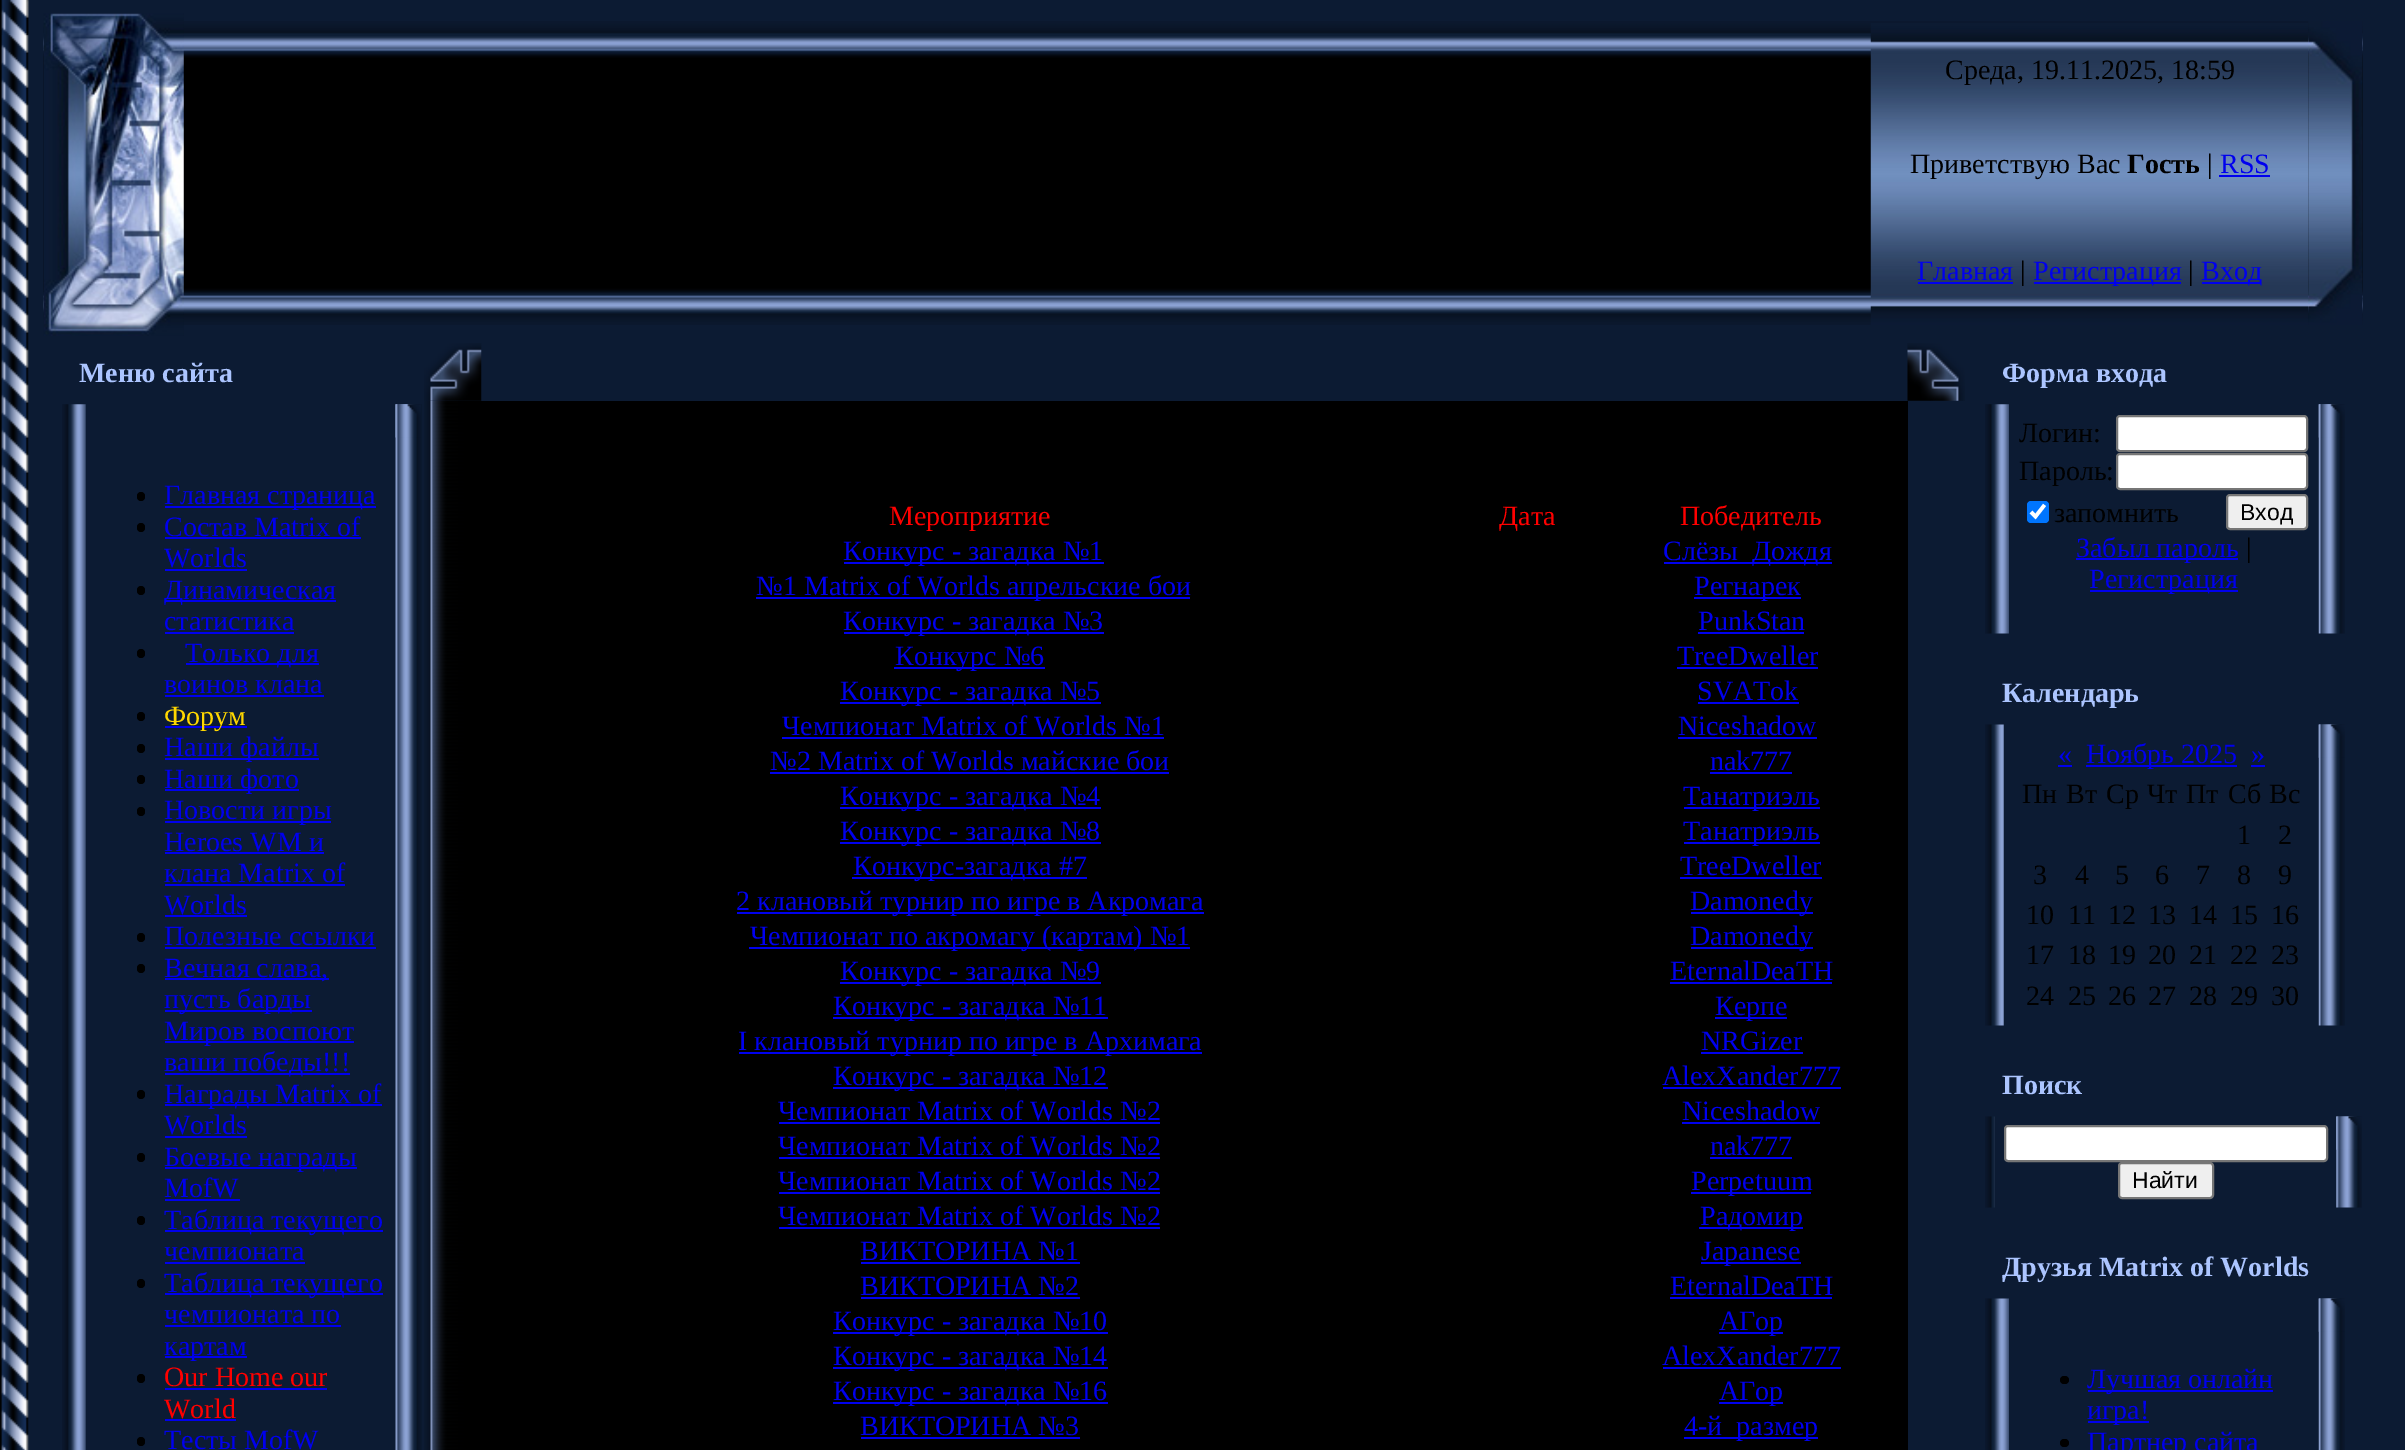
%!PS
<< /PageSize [2405 1450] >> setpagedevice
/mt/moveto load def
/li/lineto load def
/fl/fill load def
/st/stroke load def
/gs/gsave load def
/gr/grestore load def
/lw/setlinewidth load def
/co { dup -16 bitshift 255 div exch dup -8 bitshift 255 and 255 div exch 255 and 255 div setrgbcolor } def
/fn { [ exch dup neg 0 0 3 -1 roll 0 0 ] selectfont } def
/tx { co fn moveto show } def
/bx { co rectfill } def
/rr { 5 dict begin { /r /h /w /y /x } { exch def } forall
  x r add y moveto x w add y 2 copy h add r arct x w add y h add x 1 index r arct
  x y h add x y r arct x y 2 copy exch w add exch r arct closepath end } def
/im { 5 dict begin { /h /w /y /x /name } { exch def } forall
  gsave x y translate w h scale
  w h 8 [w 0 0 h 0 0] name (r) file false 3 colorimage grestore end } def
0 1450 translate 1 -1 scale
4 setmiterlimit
0 0 2405 1450 16#0C1B33 bx
(media/1.raw) 0 0 29 1450 im
(media/2.raw) 1 0 28 35 im
(media/3.raw) 43 21 2320 304 im
(media/4.raw) 43 13 141 323 im
(media/5.raw) 1870 23 439 302 im
2219 175 51 2 16#0000EE bx
1918 282 95 2 16#0000EE bx
2034 282 147 2 16#0000EE bx
2202 282 59 2 16#0000EE bx
(media/6.raw) 2308 21 55 304 im
(media/7.raw) 62 404 24 1046 im
16#000000 co
137 492 8 9 4 rr fl
165 506 211 2 16#0000EE bx
16#000000 co
137 523 8 9 4 rr fl
165 537 196 2 16#0000EE bx
165 569 82 2 16#0000EE bx
16#000000 co
137 586 8 9 4 rr fl
165 600 171 2 16#0000EE bx
165 632 129 2 16#0000EE bx
16#000000 co
137 649 8 9 4 rr fl
186 663 133 2 16#0000EE bx
165 695 159 2 16#0000EE bx
16#000000 co
137 712 8 9 4 rr fl
165 726 82 2 16#0000EE bx
16#000000 co
137 744 8 9 4 rr fl
165 758 154 2 16#0000EE bx
16#000000 co
137 775 8 9 4 rr fl
165 789 134 2 16#0000EE bx
16#000000 co
137 807 8 9 4 rr fl
165 821 166 2 16#0000EE bx
165 852 159 2 16#0000EE bx
165 884 180 2 16#0000EE bx
165 915 82 2 16#0000EE bx
16#000000 co
137 933 8 9 4 rr fl
165 947 211 2 16#0000EE bx
16#000000 co
137 964 8 9 4 rr fl
165 978 164 2 16#0000EE bx
165 1010 147 2 16#0000EE bx
165 1041 189 2 16#0000EE bx
165 1073 185 2 16#0000EE bx
16#000000 co
137 1090 8 9 4 rr fl
165 1104 217 2 16#0000EE bx
165 1136 82 2 16#0000EE bx
16#000000 co
137 1153 8 9 4 rr fl
165 1167 192 2 16#0000EE bx
165 1199 75 2 16#0000EE bx
16#000000 co
137 1216 8 9 4 rr fl
165 1230 218 2 16#0000EE bx
165 1262 140 2 16#0000EE bx
16#000000 co
137 1279 8 9 4 rr fl
165 1293 218 2 16#0000EE bx
165 1325 176 2 16#0000EE bx
165 1356 82 2 16#0000EE bx
16#000000 co
137 1374 8 9 4 rr fl
165 1388 162 2 16#0000EE bx
165 1419 71 2 16#0000EE bx
16#000000 co
137 1437 8 9 4 rr fl
(media/8.raw) 395 404 27 1046 im
(media/9.raw) 395 404 26 34 im
(media/12.raw) 424 400 58 1050 im
(media/10.raw) 424 343 58 58 im
(media/11.raw) 1907 343 58 58 im
481 401 1427 1049 16#000000 bx
844 562 260 2 16#0000EE bx
1664 562 168 2 16#0000EE bx
756 597 434 2 16#0000EE bx
1694 597 107 2 16#0000EE bx
844 632 260 2 16#0000EE bx
1698 632 106 2 16#0000EE bx
894 667 151 2 16#0000EE bx
1677 667 141 2 16#0000EE bx
840 702 261 2 16#0000EE bx
1698 702 101 2 16#0000EE bx
782 737 382 2 16#0000EE bx
1678 737 139 2 16#0000EE bx
770 772 399 2 16#0000EE bx
1710 772 82 2 16#0000EE bx
840 807 261 2 16#0000EE bx
1684 807 136 2 16#0000EE bx
840 842 261 2 16#0000EE bx
1684 842 136 2 16#0000EE bx
852 877 235 2 16#0000EE bx
1680 877 142 2 16#0000EE bx
737 912 467 2 16#0000EE bx
1691 912 122 2 16#0000EE bx
749 947 441 2 16#0000EE bx
1691 947 122 2 16#0000EE bx
840 982 261 2 16#0000EE bx
1670 982 162 2 16#0000EE bx
833 1017 275 2 16#0000EE bx
1715 1017 72 2 16#0000EE bx
739 1052 463 2 16#0000EE bx
1701 1052 102 2 16#0000EE bx
833 1087 275 2 16#0000EE bx
1663 1087 178 2 16#0000EE bx
779 1122 381 2 16#0000EE bx
1682 1122 138 2 16#0000EE bx
779 1157 381 2 16#0000EE bx
1710 1157 82 2 16#0000EE bx
779 1192 381 2 16#0000EE bx
1691 1192 120 2 16#0000EE bx
779 1227 381 2 16#0000EE bx
1699 1227 104 2 16#0000EE bx
861 1262 219 2 16#0000EE bx
1701 1262 100 2 16#0000EE bx
861 1297 219 2 16#0000EE bx
1670 1297 162 2 16#0000EE bx
833 1332 275 2 16#0000EE bx
1719 1332 64 2 16#0000EE bx
833 1367 275 2 16#0000EE bx
1663 1367 178 2 16#0000EE bx
833 1402 275 2 16#0000EE bx
1719 1402 64 2 16#0000EE bx
861 1437 219 2 16#0000EE bx
1684 1437 134 2 16#0000EE bx
(media/13.raw) 1985 404 24 230 im
16#FFFFFF co
2117 416 190 35 3 rr gs fl gr
16#767676 co
2 lw
st
16#FFFFFF co
2117 454 190 35 3 rr gs fl gr
16#767676 co
st
16#0075FF co
2027 501 22 22 4 rr fl
16#FFFFFF co
3.6 lw
2031 512 mt 2035.5 516.5 li 2044.5 505 li st
16#EFEFEF co
2227 495 80 34 3 rr gs fl gr
16#767676 co
2 lw
st
2076 558 162 2 16#0000EE bx
2090 590 148 2 16#0000EE bx
(media/14.raw) 2318 404 27 230 im
(media/15.raw) 2318 404 27 34 im
(media/16.raw) 1985 724 19 302 im
2058 765 14 2 16#0000EE bx
2086 765 151 2 16#0000EE bx
2251 765 14 2 16#0000EE bx
(media/17.raw) 2318 724 27 302 im
(media/18.raw) 2318 724 27 34 im
(media/19.raw) 1985 1116 10 92 im
16#FFFFFF co
2005 1126 322 35 3 rr gs fl gr
16#767676 co
st
16#EFEFEF co
2119 1163 94 35 3 rr gs fl gr
16#767676 co
st
(media/20.raw) 2336 1116 26 92 im
(media/21.raw) 2336 1116 26 34 im
(media/22.raw) 1985 1298 24 152 im
16#000000 co
2060 1376 9 8 4 rr fl
2088 1390 185 2 16#0000EE bx
2088 1421 61 2 16#0000EE bx
16#000000 co
2060 1439 9 8 4 rr fl
(media/23.raw) 2318 1298 27 152 im
(media/18.raw) 2318 1298 27 34 im
(Среда, 19.11.2025, 18:59) 1945 79 /LiberationSerif-Regular 28 16#000000 tx
(Приветствую Вас) 1910 173 /LiberationSerif-Regular 28 16#000000 tx
(Гость) 2127 173 /LiberationSerif-Bold 28 16#000000 tx
(|) 2207 173 /LiberationSerif-Regular 28 16#000000 tx
(RSS) 2220 173 /LiberationSerif-Regular 28 16#0000EE tx
(Главная) 1917 280 /LiberationSerif-Regular 28 16#0000EE tx
(|) 2020 280 /LiberationSerif-Regular 28 16#000000 tx
(Регистрация) 2033 280 /LiberationSerif-Regular 28 16#0000EE tx
(|) 2188 280 /LiberationSerif-Regular 28 16#000000 tx
(Вход) 2201 280 /LiberationSerif-Regular 28 16#0000EE tx
(Меню сайта) 79 382 /LiberationSerif-Bold 28 16#ACC5FF tx
(Главная страница) 164 504 /LiberationSerif-Regular 28 16#0000EE tx
(Состав Matrix of) 164 536 /LiberationSerif-Regular 28 16#0000EE tx
(Worlds) 164 567 /LiberationSerif-Regular 28 16#0000EE tx
(Динамическая) 164 599 /LiberationSerif-Regular 28 16#0000EE tx
(статистика) 164 630 /LiberationSerif-Regular 28 16#0000EE tx
(Только для) 185 662 /LiberationSerif-Regular 28 16#0000EE tx
(воинов клана) 164 693 /LiberationSerif-Regular 28 16#0000EE tx
(Форум) 164 725 /LiberationSerif-Regular 28 16#FFD700 tx
(Наши файлы) 164 756 /LiberationSerif-Regular 28 16#0000EE tx
(Наши фото) 164 788 /LiberationSerif-Regular 28 16#0000EE tx
(Новости игры) 164 819 /LiberationSerif-Regular 28 16#0000EE tx
(Heroes WM и) 164 851 /LiberationSerif-Regular 28 16#0000EE tx
(клана Matrix of) 164 882 /LiberationSerif-Regular 28 16#0000EE tx
(Worlds) 164 914 /LiberationSerif-Regular 28 16#0000EE tx
(Полезные ссылки) 164 945 /LiberationSerif-Regular 28 16#0000EE tx
(Вечная слава,) 164 977 /LiberationSerif-Regular 28 16#0000EE tx
(пусть барды) 164 1008 /LiberationSerif-Regular 28 16#0000EE tx
(Миров воспоют) 164 1040 /LiberationSerif-Regular 28 16#0000EE tx
(ваши победы!!!) 164 1071 /LiberationSerif-Regular 28 16#0000EE tx
(Награды Matrix of) 164 1103 /LiberationSerif-Regular 28 16#0000EE tx
(Worlds) 164 1134 /LiberationSerif-Regular 28 16#0000EE tx
(Боевые награды) 164 1166 /LiberationSerif-Regular 28 16#0000EE tx
(MofW) 164 1197 /LiberationSerif-Regular 28 16#0000EE tx
(Таблица текущего) 164 1229 /LiberationSerif-Regular 28 16#0000EE tx
(чемпионата) 164 1260 /LiberationSerif-Regular 28 16#0000EE tx
(Таблица текущего) 164 1292 /LiberationSerif-Regular 28 16#0000EE tx
(чемпионата по) 164 1323 /LiberationSerif-Regular 28 16#0000EE tx
(картам) 164 1355 /LiberationSerif-Regular 28 16#0000EE tx
(Our Home our) 164 1386 /LiberationSerif-Regular 28 16#FF0000 tx
(World) 164 1418 /LiberationSerif-Regular 28 16#FF0000 tx
(Тесты MofW) 164 1449 /LiberationSerif-Regular 28 16#0000EE tx
(Мероприятие) 889 525 /LiberationSerif-Regular 28 16#FF0000 tx
(Дата) 1499 525 /LiberationSerif-Regular 28 16#FF0000 tx
(Победитель) 1680 525 /LiberationSerif-Regular 28 16#FF0000 tx
(Конкурс - загадка №1) 843 560 /LiberationSerif-Regular 28 16#0000EE tx
(Слёзы_Дождя) 1663 560 /LiberationSerif-Regular 28 16#0000EE tx
(№1 Matrix of Worlds апрельские бои) 756 595 /LiberationSerif-Regular 28 16#0000EE tx
(Регнарек) 1694 595 /LiberationSerif-Regular 28 16#0000EE tx
(Конкурс - загадка №3) 843 630 /LiberationSerif-Regular 28 16#0000EE tx
(PunkStan) 1698 630 /LiberationSerif-Regular 28 16#0000EE tx
(Конкурс №6) 895 665 /LiberationSerif-Regular 28 16#0000EE tx
(TreeDweller) 1677 665 /LiberationSerif-Regular 28 16#0000EE tx
(Конкурс - загадка №5) 840 700 /LiberationSerif-Regular 28 16#0000EE tx
(SVATok) 1697 700 /LiberationSerif-Regular 28 16#0000EE tx
(Чемпионат Matrix of Worlds №1) 782 735 /LiberationSerif-Regular 28 16#0000EE tx
(Niceshadow) 1678 735 /LiberationSerif-Regular 28 16#0000EE tx
(№2 Matrix of Worlds майские бои) 770 770 /LiberationSerif-Regular 28 16#0000EE tx
(nak777) 1710 770 /LiberationSerif-Regular 28 16#0000EE tx
(Конкурс - загадка №4) 840 805 /LiberationSerif-Regular 28 16#0000EE tx
(Танатриэль) 1683 805 /LiberationSerif-Regular 28 16#0000EE tx
(Конкурс - загадка №8) 840 840 /LiberationSerif-Regular 28 16#0000EE tx
(Танатриэль) 1683 840 /LiberationSerif-Regular 28 16#0000EE tx
(Конкурс-загадка #7) 853 875 /LiberationSerif-Regular 28 16#0000EE tx
(TreeDweller) 1680 875 /LiberationSerif-Regular 28 16#0000EE tx
(2 клановый турнир по игре в Акромага) 736 910 /LiberationSerif-Regular 28 16#0000EE tx
(Damonedy) 1690 910 /LiberationSerif-Regular 28 16#0000EE tx
(Чемпионат по акромагу \(картам\) №1) 750 945 /LiberationSerif-Regular 28 16#0000EE tx
(Damonedy) 1690 945 /LiberationSerif-Regular 28 16#0000EE tx
(Конкурс - загадка №9) 840 980 /LiberationSerif-Regular 28 16#0000EE tx
(EternalDeaTH) 1670 980 /LiberationSerif-Regular 28 16#0000EE tx
(Конкурс - загадка №11) 833 1015 /LiberationSerif-Regular 28 16#0000EE tx
(Керпе) 1715 1015 /LiberationSerif-Regular 28 16#0000EE tx
(I клановый турнир по игре в Архимага) 738 1050 /LiberationSerif-Regular 28 16#0000EE tx
(NRGizer) 1701 1050 /LiberationSerif-Regular 28 16#0000EE tx
(Конкурс - загадка №12) 833 1085 /LiberationSerif-Regular 28 16#0000EE tx
(AlexXander777) 1662 1085 /LiberationSerif-Regular 28 16#0000EE tx
(Чемпионат Matrix of Worlds №2) 778 1120 /LiberationSerif-Regular 28 16#0000EE tx
(Niceshadow) 1682 1120 /LiberationSerif-Regular 28 16#0000EE tx
(Чемпионат Matrix of Worlds №2) 778 1155 /LiberationSerif-Regular 28 16#0000EE tx
(nak777) 1710 1155 /LiberationSerif-Regular 28 16#0000EE tx
(Чемпионат Matrix of Worlds №2) 778 1190 /LiberationSerif-Regular 28 16#0000EE tx
(Perpetuum) 1691 1190 /LiberationSerif-Regular 28 16#0000EE tx
(Чемпионат Matrix of Worlds №2) 778 1225 /LiberationSerif-Regular 28 16#0000EE tx
(Радомир) 1700 1225 /LiberationSerif-Regular 28 16#0000EE tx
(ВИКТОРИНА №1) 860 1260 /LiberationSerif-Regular 28 16#0000EE tx
(Japanese) 1701 1260 /LiberationSerif-Regular 28 16#0000EE tx
(ВИКТОРИНА №2) 860 1295 /LiberationSerif-Regular 28 16#0000EE tx
(EternalDeaTH) 1670 1295 /LiberationSerif-Regular 28 16#0000EE tx
(Конкурс - загадка №10) 833 1330 /LiberationSerif-Regular 28 16#0000EE tx
(АГор) 1719 1330 /LiberationSerif-Regular 28 16#0000EE tx
(Конкурс - загадка №14) 833 1365 /LiberationSerif-Regular 28 16#0000EE tx
(AlexXander777) 1662 1365 /LiberationSerif-Regular 28 16#0000EE tx
(Конкурс - загадка №16) 833 1400 /LiberationSerif-Regular 28 16#0000EE tx
(АГор) 1719 1400 /LiberationSerif-Regular 28 16#0000EE tx
(ВИКТОРИНА №3) 860 1435 /LiberationSerif-Regular 28 16#0000EE tx
(4-й_размер) 1684 1435 /LiberationSerif-Regular 28 16#0000EE tx
(Форма входа) 2002 382 /LiberationSerif-Bold 28 16#ACC5FF tx
(Логин:) 2019 442 /LiberationSerif-Regular 28 16#000000 tx
(Пароль:) 2019 480 /LiberationSerif-Regular 28 16#000000 tx
(запомнить) 2054 522 /LiberationSerif-Regular 28 16#000000 tx
(Вход) 2240 520 /LiberationSans-Regular 23 16#000000 tx
(Забыл пароль) 2076 557 /LiberationSerif-Regular 28 16#0000EE tx
(|) 2246 557 /LiberationSerif-Regular 28 16#000000 tx
(Регистрация) 2089 588 /LiberationSerif-Regular 28 16#0000EE tx
(Календарь) 2002 702 /LiberationSerif-Bold 28 16#ACC5FF tx
(«) 2058 763 /LiberationSerif-Regular 28 16#0000EE tx
(Ноябрь 2025) 2086 763 /LiberationSerif-Regular 28 16#0000EE tx
(») 2251 763 /LiberationSerif-Regular 28 16#0000EE tx
(Пн) 2022 803 /LiberationSerif-Regular 28 16#000000 tx
(Вт) 2066 803 /LiberationSerif-Regular 28 16#000000 tx
(Ср) 2106 803 /LiberationSerif-Regular 28 16#000000 tx
(Чт) 2147 803 /LiberationSerif-Regular 28 16#000000 tx
(Пт) 2186 803 /LiberationSerif-Regular 28 16#000000 tx
(Сб) 2228 803 /LiberationSerif-Regular 28 16#000000 tx
(Вс) 2269 803 /LiberationSerif-Regular 28 16#000000 tx
(1) 2237 844 /LiberationSerif-Regular 28 16#000000 tx
(2) 2278 844 /LiberationSerif-Regular 28 16#000000 tx
(3) 2033 884 /LiberationSerif-Regular 28 16#000000 tx
(4) 2075 884 /LiberationSerif-Regular 28 16#000000 tx
(5) 2115 884 /LiberationSerif-Regular 28 16#000000 tx
(6) 2155 884 /LiberationSerif-Regular 28 16#000000 tx
(7) 2196 884 /LiberationSerif-Regular 28 16#000000 tx
(8) 2237 884 /LiberationSerif-Regular 28 16#000000 tx
(9) 2278 884 /LiberationSerif-Regular 28 16#000000 tx
(10) 2026 924 /LiberationSerif-Regular 28 16#000000 tx
(11) 2068 924 /LiberationSerif-Regular 28 16#000000 tx
(12) 2108 924 /LiberationSerif-Regular 28 16#000000 tx
(13) 2148 924 /LiberationSerif-Regular 28 16#000000 tx
(14) 2189 924 /LiberationSerif-Regular 28 16#000000 tx
(15) 2230 924 /LiberationSerif-Regular 28 16#000000 tx
(16) 2271 924 /LiberationSerif-Regular 28 16#000000 tx
(17) 2026 964 /LiberationSerif-Regular 28 16#000000 tx
(18) 2068 964 /LiberationSerif-Regular 28 16#000000 tx
(19) 2108 964 /LiberationSerif-Regular 28 16#000000 tx
(20) 2148 964 /LiberationSerif-Regular 28 16#000000 tx
(21) 2189 964 /LiberationSerif-Regular 28 16#000000 tx
(22) 2230 964 /LiberationSerif-Regular 28 16#000000 tx
(23) 2271 964 /LiberationSerif-Regular 28 16#000000 tx
(24) 2026 1005 /LiberationSerif-Regular 28 16#000000 tx
(25) 2068 1005 /LiberationSerif-Regular 28 16#000000 tx
(26) 2108 1005 /LiberationSerif-Regular 28 16#000000 tx
(27) 2148 1005 /LiberationSerif-Regular 28 16#000000 tx
(28) 2189 1005 /LiberationSerif-Regular 28 16#000000 tx
(29) 2230 1005 /LiberationSerif-Regular 28 16#000000 tx
(30) 2271 1005 /LiberationSerif-Regular 28 16#000000 tx
(Поиск) 2002 1094 /LiberationSerif-Bold 28 16#ACC5FF tx
(Найти) 2132 1188 /LiberationSans-Regular 23 16#000000 tx
(Друзья Matrix of Worlds) 2002 1276 /LiberationSerif-Bold 28 16#ACC5FF tx
(Лучшая онлайн) 2087 1388 /LiberationSerif-Regular 28 16#0000EE tx
(игра!) 2087 1419 /LiberationSerif-Regular 28 16#0000EE tx
(Партнер сайта) 2087 1451 /LiberationSerif-Regular 28 16#0000EE tx
showpage
